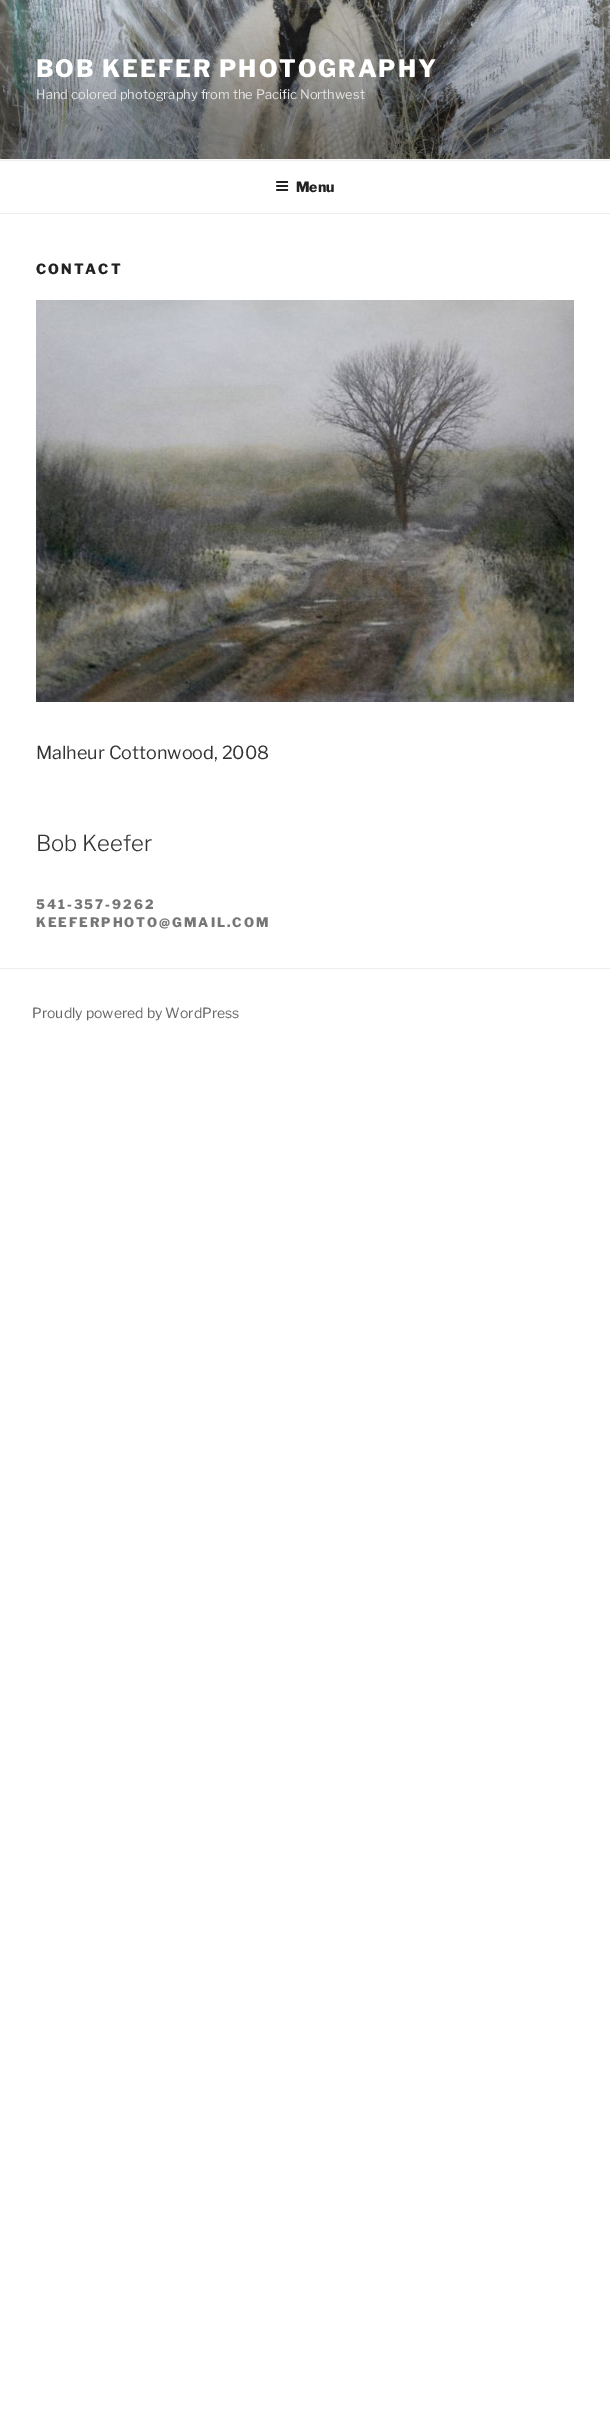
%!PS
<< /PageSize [610 2424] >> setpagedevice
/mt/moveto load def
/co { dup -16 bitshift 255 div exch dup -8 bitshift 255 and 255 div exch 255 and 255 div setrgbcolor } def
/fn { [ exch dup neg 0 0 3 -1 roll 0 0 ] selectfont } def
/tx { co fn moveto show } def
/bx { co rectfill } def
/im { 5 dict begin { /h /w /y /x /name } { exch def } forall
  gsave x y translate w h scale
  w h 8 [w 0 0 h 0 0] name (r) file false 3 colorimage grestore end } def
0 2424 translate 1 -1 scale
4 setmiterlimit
0 0 610 2424 16#FFFFFF bx
0 159 610 1 16#FAFAFA bx
(media/1.raw) 0 0 610 159 im
0 160 610 1 16#EEEEEE bx
0 213 610 1 16#EEEEEE bx
(media/2.raw) 276 181 13 10 im
(media/3.raw) 36 300 538 402 im
0 968 610 1 16#EEEEEE bx
/LibreFranklin-Thin 24 fn
16#FFFFFF co
36 77 mt 1.9 0 (BOB KEEFER PHOTOGRAPHY) ashow
(Hand colored photography from the Pacific Northwest) 36 99 /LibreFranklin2-Thin 13 16#E5E5E5 tx
(Menu) 296 192 /LibreFranklin-Thin 14 16#222222 tx
36 274 mt 2 0 (CONTACT) ashow
(Malheur Cottonwood, 2008) 36 759 /LibreFranklin2-Thin 18 16#333333 tx
(Bob Keefer) 36 851 /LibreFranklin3-Thin 22 16#333333 tx
/LibreFranklin-Thin 13 fn
16#767676 co
36 909 mt 1.95 0 (541-357-9262) ashow
36 927 mt 1.95 0 (KEEFERPHOTO@GMAIL.COM) ashow
(Proudly powered by WordPress) 32 1018 /LibreFranklin2-Thin 14 16#666666 tx
showpage
